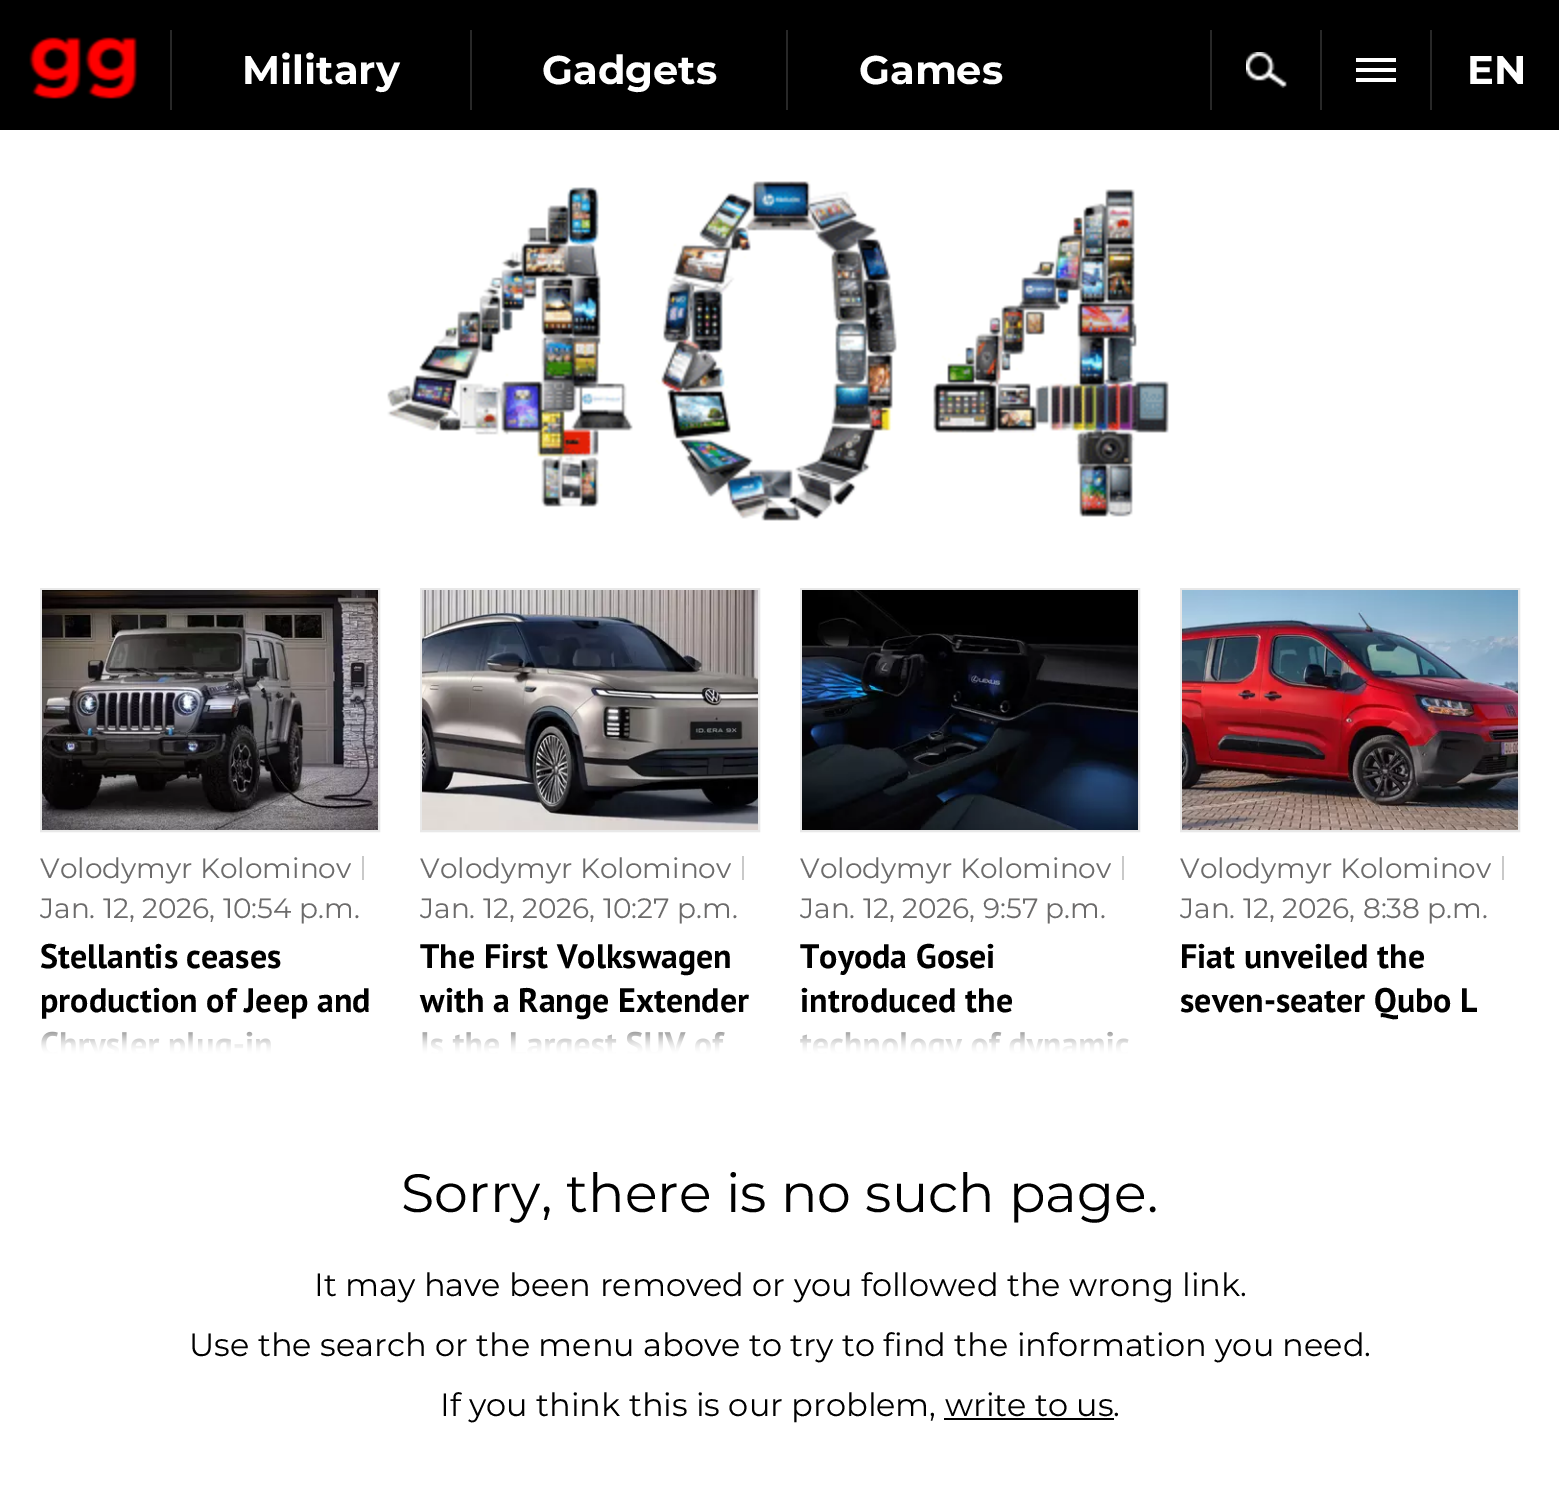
%!PS
<< /PageSize [1559 1512] >> setpagedevice
/lw/setlinewidth load def
/co { dup -16 bitshift 255 div exch dup -8 bitshift 255 and 255 div exch 255 and 255 div setrgbcolor } def
/fn { [ exch dup neg 0 0 3 -1 roll 0 0 ] selectfont } def
/tx { co fn moveto show } def
/bx { co rectfill } def
/im { 5 dict begin { /h /w /y /x /name } { exch def } forall
  gsave x y translate w h scale
  w h 8 [w 0 0 h 0 0] name (r) file false 3 colorimage grestore end } def
0 1512 translate 1 -1 scale
4 setmiterlimit
0 0 1559 1512 16#FFFFFF bx
0 0 1559 130 16#000000 bx
(media/1.raw) 29 37 109 62 im
170 30 2 80 16#282828 bx
470 30 2 80 16#282828 bx
786 30 2 80 16#282828 bx
1210 30 2 80 16#282828 bx
(media/2.raw) 1246 52 41 36 im
1320 30 2 80 16#282828 bx
1356 58 40 4 16#FFFFFF bx
1356 68 40 4 16#FFFFFF bx
1356 78 40 4 16#FFFFFF bx
1430 30 2 80 16#282828 bx
(media/3.raw) 387 180 782 342 im
16#E8E8E8 co
2 lw
41 589 338 242 rectstroke
(media/4.raw) 42 590 336 240 im
362 856 2 24 16#C9C9C9 bx
(media/5.raw) 41 1031 230 33 im
16#E8E8E8 co
421 589 338 242 rectstroke
(media/6.raw) 422 590 336 240 im
742 856 2 24 16#C9C9C9 bx
(media/7.raw) 422 1031 303 33 im
16#E8E8E8 co
801 589 338 242 rectstroke
(media/8.raw) 802 590 336 240 im
1122 856 2 24 16#C9C9C9 bx
(media/9.raw) 800 1031 329 33 im
16#E8E8E8 co
1181 589 338 242 rectstroke
(media/10.raw) 1182 590 336 240 im
1502 856 2 24 16#C9C9C9 bx
944 1418 170 2 16#000000 bx
(Military) 242 84 /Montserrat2-Thin 40 16#FFFFFF tx
(Gadgets) 542 84 /Montserrat2-Thin 40 16#FFFFFF tx
(Games) 859 84 /Montserrat2-Thin 40 16#FFFFFF tx
(EN) 1467 84 /Montserrat2-Thin 40 16#FFFFFF tx
(Volodymyr Kolominov) 40 878 /Montserrat-Thin 28 16#6C6B6B tx
(Jan. 12, 2026, 10:54 p.m.) 40 918 /Montserrat-Thin 28 16#6C6B6B tx
(Stellantis ceases) 40 968 /PTSans-Bold 34 16#000000 tx
(production of Jeep and) 40 1012 /PTSans-Bold 34 16#000000 tx
(Volodymyr Kolominov) 420 878 /Montserrat-Thin 28 16#6C6B6B tx
(Jan. 12, 2026, 10:27 p.m.) 420 918 /Montserrat-Thin 28 16#6C6B6B tx
(The First Volkswagen) 420 968 /PTSans-Bold 34 16#000000 tx
(with a Range Extender) 420 1012 /PTSans-Bold 34 16#000000 tx
(Volodymyr Kolominov) 800 878 /Montserrat-Thin 28 16#6C6B6B tx
(Jan. 12, 2026, 9:57 p.m.) 800 918 /Montserrat-Thin 28 16#6C6B6B tx
(Toyoda Gosei) 800 968 /PTSans-Bold 34 16#000000 tx
(introduced the) 800 1012 /PTSans-Bold 34 16#000000 tx
(Volodymyr Kolominov) 1180 878 /Montserrat-Thin 28 16#6C6B6B tx
(Jan. 12, 2026, 8:38 p.m.) 1180 918 /Montserrat-Thin 28 16#6C6B6B tx
(Fiat unveiled the) 1180 968 /PTSans-Bold 34 16#000000 tx
(seven-seater Qubo L) 1180 1012 /PTSans-Bold 34 16#000000 tx
(Sorry, there is no such page.) 401 1212 /Montserrat-Thin 54 16#000000 tx
(It may have been removed or you followed the wrong link.) 314 1296 /Montserrat-Thin 32 16#000000 tx
(Use the search or the menu above to try to find the information you need.) 189 1356 /Montserrat-Thin 32 16#000000 tx
(If you think this is our problem, write to us.) 440 1416 /Montserrat-Thin 32 16#000000 tx
showpage
